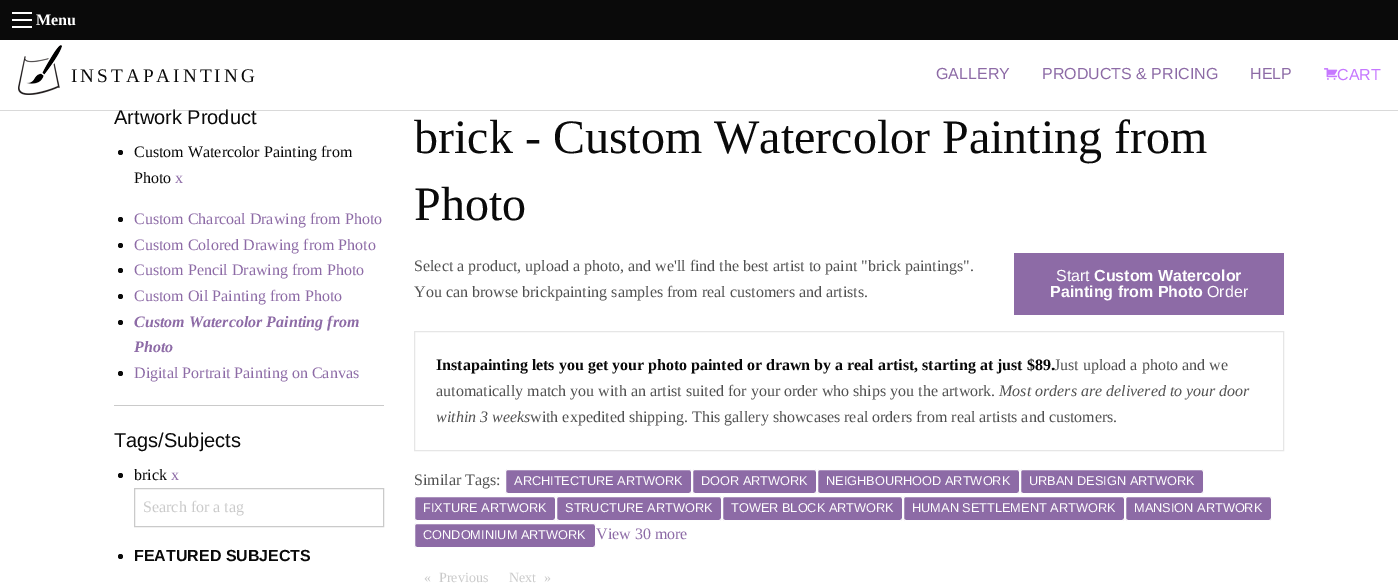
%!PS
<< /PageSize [1398 585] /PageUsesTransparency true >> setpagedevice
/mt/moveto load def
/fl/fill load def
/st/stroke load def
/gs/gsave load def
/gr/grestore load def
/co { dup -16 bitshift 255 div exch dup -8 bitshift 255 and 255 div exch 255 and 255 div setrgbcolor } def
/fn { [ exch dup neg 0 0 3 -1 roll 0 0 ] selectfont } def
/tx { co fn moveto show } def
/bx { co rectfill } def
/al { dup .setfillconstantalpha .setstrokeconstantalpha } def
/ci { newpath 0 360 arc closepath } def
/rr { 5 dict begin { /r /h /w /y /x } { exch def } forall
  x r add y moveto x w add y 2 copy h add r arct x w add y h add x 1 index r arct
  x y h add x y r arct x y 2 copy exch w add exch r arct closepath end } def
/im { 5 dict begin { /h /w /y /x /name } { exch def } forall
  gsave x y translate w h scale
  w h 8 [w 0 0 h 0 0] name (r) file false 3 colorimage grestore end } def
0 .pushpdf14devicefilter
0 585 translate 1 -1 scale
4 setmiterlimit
0 0 1398 585 16#FFFFFF bx
0 0 1398 40 16#0A0A0A bx
12 26 20 2 16#FEFEFE bx
12 19 20 2 16#FEFEFE bx
12 12 20 2 16#FEFEFE bx
(media/1.raw) 18 45 44 50 im
(media/2.raw) 1324 68 14 12 im
16#0A0A0A co
120.5 152.5 2.5 ci fl
120.5 219.5 2.5 ci fl
120.5 245.5 2.5 ci fl
120.5 270.5 2.5 ci fl
120.5 296.5 2.5 ci fl
120.5 322.5 2.5 ci fl
120.5 373.5 2.5 ci fl
114 405 270 1 16#CACACA bx
16#0A0A0A co
120.5 475.5 2.5 ci fl
16#CACACA co
134.5 488.5 249 38 rectstroke
16#0A0A0A co
120.5 556.5 2.5 ci fl
1014 253 270 62 16#8D6BA6 bx
16#E6E6E6 co
414.5 331.5 869 119 rectstroke
16#8D6BA6 co
505.5 469.5 186 24 2.5 rr gs fl gr
16#FEFEFE co
st
16#8D6BA6 co
692.5 469.5 124 24 2.5 rr gs fl gr
16#FEFEFE co
st
16#8D6BA6 co
817.5 469.5 202 24 2.5 rr gs fl gr
16#FEFEFE co
st
16#8D6BA6 co
1020.5 469.5 183 24 2.5 rr gs fl gr
16#FEFEFE co
st
16#8D6BA6 co
414.5 496.5 141 24 2.5 rr gs fl gr
16#FEFEFE co
st
16#8D6BA6 co
556.5 496.5 165 24 2.5 rr gs fl gr
16#FEFEFE co
st
16#8D6BA6 co
722.5 496.5 180 24 2.5 rr gs fl gr
16#FEFEFE co
st
16#8D6BA6 co
903.5 496.5 221 24 2.5 rr gs fl gr
16#FEFEFE co
st
16#8D6BA6 co
1125.5 496.5 146 24 2.5 rr gs fl gr
16#FEFEFE co
st
16#8D6BA6 co
414.5 523.5 181 24 2.5 rr gs fl gr
16#FEFEFE co
st
(Menu) 36 25 /LiberationSerif-Bold 16 16#FEFEFE tx
/LiberationSerif-Regular 19.25 fn
16#0A0A0A co
71 82 mt 3 0 (INSTAPAINTING) ashow
(GALLERY) 936 79 /LiberationSans-Regular 16 16#8D6BA6 tx
(PRODUCTS & PRICING) 1042 79 /LiberationSans-Regular 16 16#8D6BA6 tx
(HELP) 1250 79 /LiberationSans-Regular 16 16#8D6BA6 tx
(CART) 1337 80 /LiberationSans-Regular 16 16#C678FF tx
(Artwork Product) 114 124 /LiberationSans-Regular 20 16#0A0A0A tx
0.3 al
0 110 1398 1 16#808080 bx
1 al
(Custom Watercolor Painting from) 134 157 /LiberationSerif-Regular 16 16#0A0A0A tx
(Photo) 134 183 /LiberationSerif-Regular 16 16#0A0A0A tx
(x) 175 183 /LiberationSerif-Regular 16 16#8D6BA6 tx
(Custom Charcoal Drawing from Photo) 134 224 /LiberationSerif-Regular 16 16#8D6BA6 tx
(Custom Colored Drawing from Photo) 134 250 /LiberationSerif-Regular 16 16#8D6BA6 tx
(Custom Pencil Drawing from Photo) 134 275 /LiberationSerif-Regular 16 16#8D6BA6 tx
(Custom Oil Painting from Photo) 134 301 /LiberationSerif-Regular 16 16#8D6BA6 tx
(Custom Watercolor Painting from) 134 327 /LiberationSerif-BoldItalic 16 16#8D6BA6 tx
(Photo) 134 352 /LiberationSerif-BoldItalic 16 16#8D6BA6 tx
(Digital Portrait Painting on Canvas) 134 378 /LiberationSerif-Regular 16 16#8D6BA6 tx
(Tags/Subjects) 114 447 /LiberationSans-Regular 20 16#0A0A0A tx
(brick) 134 480 /LiberationSerif-Regular 16 16#0A0A0A tx
(x) 171 480 /LiberationSerif-Regular 16 16#8D6BA6 tx
(Search for a tag) 143 512 /LiberationSerif-Regular 16 16#CACACA tx
(FEATURED SUBJECTS) 134 561 /LiberationSans-Bold 16 16#0A0A0A tx
(brick - Custom Watercolor Painting from) 414 153 /LiberationSerif-Regular 48 16#0A0A0A tx
(Photo) 414 220 /LiberationSerif-Regular 48 16#0A0A0A tx
(Select a product, upload a photo, and we'll find the best artist to paint "brick paintings".) 414 271 /LiberationSerif-Regular 16 16#515151 tx
(You can browse brickpainting samples from real customers and artists.) 414 297 /LiberationSerif-Regular 16 16#515151 tx
(Start) 1056 281 /LiberationSans-Regular 16 16#FEFEFE tx
(Custom Watercolor) 1094 281 /LiberationSans-Bold 16 16#FEFEFE tx
(Painting from Photo) 1050 297 /LiberationSans-Bold 16 16#FEFEFE tx
(Order) 1207 297 /LiberationSans-Regular 16 16#FEFEFE tx
(Instapainting lets you get your photo painted or drawn by a real artist, starting at just $89.) 436 370 /LiberationSerif-Bold 16 16#0A0A0A tx
(Just upload a photo and we) 1054 370 /LiberationSerif-Regular 16 16#515151 tx
(automatically match you with an artist suited for your order who ships you the artwork.) 436 396 /LiberationSerif-Regular 16 16#515151 tx
(Most orders are delivered to your door) 999 396 /LiberationSerif-Italic 16 16#515151 tx
(within 3 weeks) 436 422 /LiberationSerif-Italic 16 16#515151 tx
(with expedited shipping. This gallery showcases real orders from real artists and customers.) 530 422 /LiberationSerif-Regular 16 16#515151 tx
(Similar Tags:) 414 485 /LiberationSerif-Regular 16 16#515151 tx
(ARCHITECTURE ARTWORK) 514 485 /LiberationSans-Regular 12.75 16#FEFEFE tx
(DOOR ARTWORK) 701 485 /LiberationSans-Regular 12.75 16#FEFEFE tx
(NEIGHBOURHOOD ARTWORK) 826 485 /LiberationSans-Regular 12.75 16#FEFEFE tx
(URBAN DESIGN ARTWORK) 1029 485 /LiberationSans-Regular 12.75 16#FEFEFE tx
(FIXTURE ARTWORK) 423 512 /LiberationSans-Regular 12.75 16#FEFEFE tx
(STRUCTURE ARTWORK) 565 512 /LiberationSans-Regular 12.75 16#FEFEFE tx
(TOWER BLOCK ARTWORK) 731 512 /LiberationSans-Regular 12.75 16#FEFEFE tx
(HUMAN SETTLEMENT ARTWORK) 912 512 /LiberationSans-Regular 12.75 16#FEFEFE tx
(MANSION ARTWORK) 1134 512 /LiberationSans-Regular 12.75 16#FEFEFE tx
(CONDOMINIUM ARTWORK) 423 539 /LiberationSans-Regular 12.75 16#FEFEFE tx
(View 30 more) 596 539 /LiberationSerif-Regular 16 16#8D6BA6 tx
(«) 424 582 /LiberationSerif-Regular 14 16#CACACA tx
(Previous) 439 582 /LiberationSerif-Regular 14 16#CACACA tx
(Next) 509 582 /LiberationSerif-Regular 14 16#CACACA tx
(») 544 582 /LiberationSerif-Regular 14 16#CACACA tx
.poppdf14devicefilter showpage
